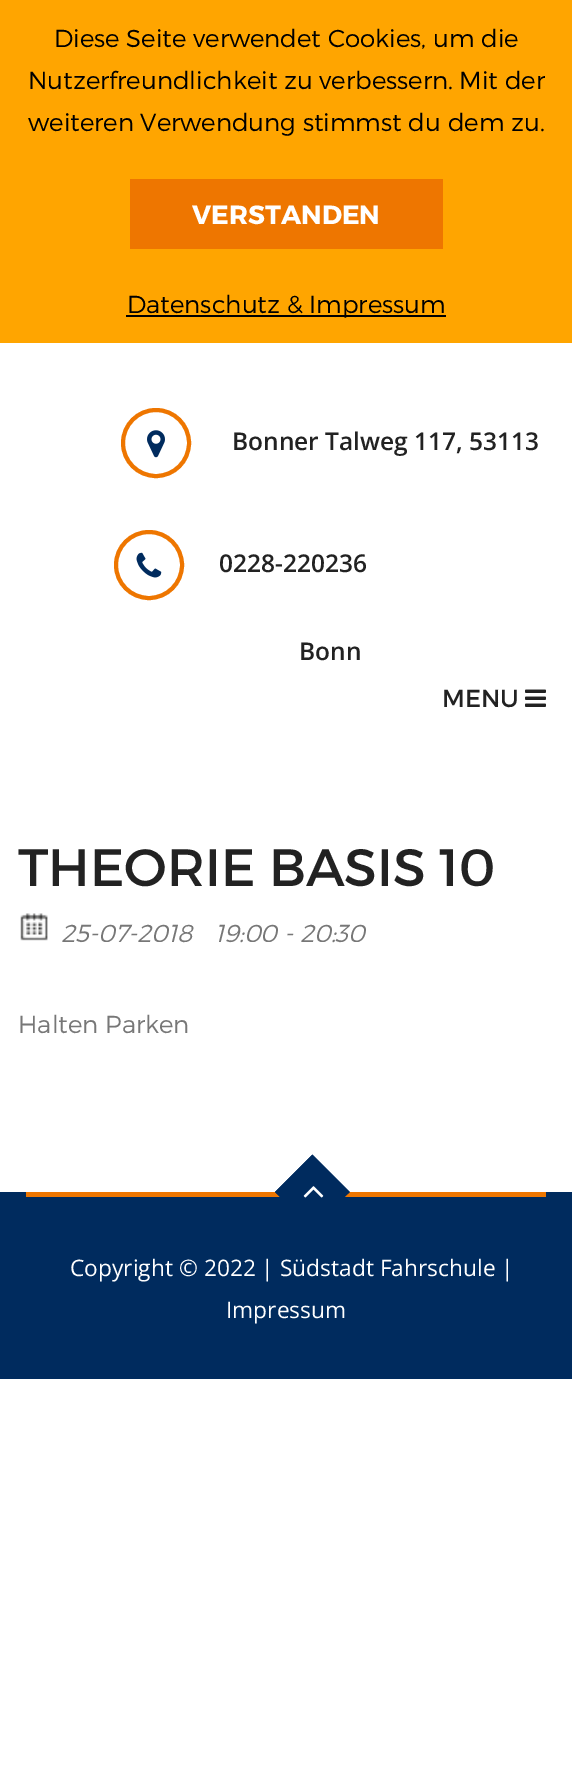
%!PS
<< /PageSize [572 1772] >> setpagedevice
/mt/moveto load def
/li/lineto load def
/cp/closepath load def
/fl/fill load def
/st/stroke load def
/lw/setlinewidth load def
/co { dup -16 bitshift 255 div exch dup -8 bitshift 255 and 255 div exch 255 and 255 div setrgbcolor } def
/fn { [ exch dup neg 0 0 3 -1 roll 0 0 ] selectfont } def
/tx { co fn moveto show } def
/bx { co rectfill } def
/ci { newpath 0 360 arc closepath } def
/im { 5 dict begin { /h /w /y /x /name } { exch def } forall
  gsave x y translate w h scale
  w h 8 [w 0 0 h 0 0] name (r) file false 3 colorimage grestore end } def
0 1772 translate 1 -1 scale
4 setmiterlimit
0 0 572 1772 16#FFFFFF bx
0 0 572 343 16#FFA500 bx
130 179 313 70 16#EE7600 bx
126 315 320 2 16#000000 bx
16#EE7600 co
4 lw
156 443 33 ci st
(media/1.raw) 147 430 18 28 im
149 565 33 ci st
(media/2.raw) 136 552 26 26 im
(media/3.raw) 525 689 21 18 im
(media/4.raw) 20 913 28 28 im
0 1192 572 187 16#002B5E bx
26 1192 520 5 16#EE7600 bx
16#002B5E co
312 1155 mt 349 1192 li 312 1229 li 275 1192 li cp fl
1.8 lw
312.5 1156 mt 348.5 1192 li 312.5 1227.5 li 276.5 1192 li cp st
(media/5.raw) 303 1186 21 12 im
(Diese Seite verwendet Cookies, um die) 54 47 /Montserrat-Light 24.5 16#000000 tx
(Nutzerfreundlichkeit zu verbessern. Mit der) 28 89 /Montserrat-Light 24.5 16#000000 tx
(weiteren Verwendung stimmst du dem zu.) 28 131 /Montserrat-Light 24.5 16#000000 tx
(VERSTANDEN) 192 224 /Montserrat-Bold 26.25 16#FFFFFF tx
(Datenschutz & Impressum) 127 313 /Montserrat-Light 24.5 16#000000 tx
(Bonner Talweg 117, 53113) 232 450 /OpenSans-SemiBold 24.5 16#222222 tx
(Bonn) 299 660 /OpenSans-SemiBold 24.5 16#222222 tx
(0228-220236) 219 572 /OpenSans-SemiBold 24.5 16#222222 tx
(MENU) 442 707 /Montserrat-Regular 24.5 16#222222 tx
(THEORIE BASIS 10) 18 886 /Montserrat-Regular 52.5 16#222222 tx
(25-07-2018) 61 942 /Montserrat-LightItalic 24.5 16#777777 tx
(19:00 - 20:30) 215 942 /Montserrat-LightItalic 24.5 16#777777 tx
(Halten Parken) 18 1033 /Montserrat-Light 24.5 16#777777 tx
(Copyright © 2022 | Südstadt Fahrschule |) 70 1276 /OpenSans-Regular 22.75 16#FFFFFF tx
(Impressum) 226 1318 /OpenSans-Regular 22.75 16#FFFFFF tx
showpage
